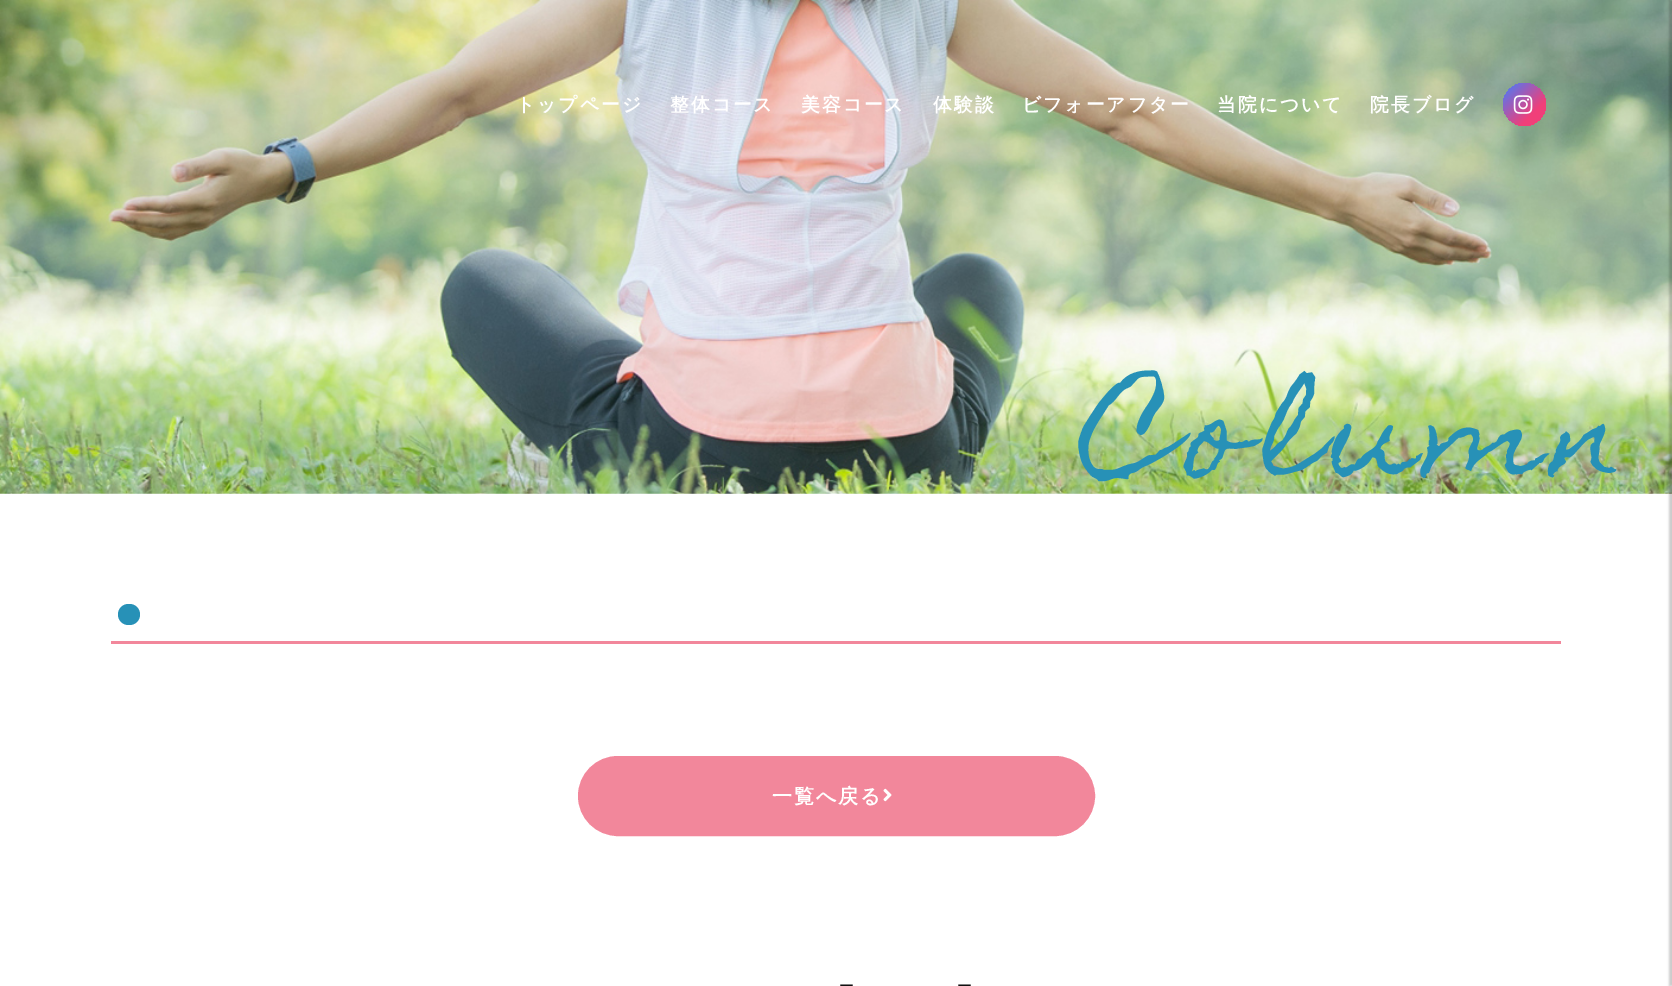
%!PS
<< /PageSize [1672 986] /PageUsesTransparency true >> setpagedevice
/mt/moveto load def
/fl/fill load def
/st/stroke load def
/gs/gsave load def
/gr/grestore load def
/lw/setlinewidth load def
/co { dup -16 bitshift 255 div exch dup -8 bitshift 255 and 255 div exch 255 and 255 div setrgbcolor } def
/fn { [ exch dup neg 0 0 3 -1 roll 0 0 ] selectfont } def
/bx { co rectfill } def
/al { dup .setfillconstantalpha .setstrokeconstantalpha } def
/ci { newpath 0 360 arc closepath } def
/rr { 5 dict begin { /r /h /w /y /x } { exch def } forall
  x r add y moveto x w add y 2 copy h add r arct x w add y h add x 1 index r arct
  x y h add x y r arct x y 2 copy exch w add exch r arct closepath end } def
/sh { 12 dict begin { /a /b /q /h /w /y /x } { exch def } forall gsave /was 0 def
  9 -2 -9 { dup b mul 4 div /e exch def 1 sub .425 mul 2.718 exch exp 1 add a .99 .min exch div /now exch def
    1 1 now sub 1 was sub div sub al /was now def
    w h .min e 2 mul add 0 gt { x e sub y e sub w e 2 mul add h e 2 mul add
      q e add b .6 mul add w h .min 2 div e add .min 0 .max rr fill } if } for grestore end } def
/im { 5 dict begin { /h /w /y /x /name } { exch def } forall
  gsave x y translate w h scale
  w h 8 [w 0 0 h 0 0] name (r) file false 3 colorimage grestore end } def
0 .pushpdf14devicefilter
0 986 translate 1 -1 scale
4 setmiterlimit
0 0 1672 986 16#FFFFFF bx
(media/2.raw) 0 0 1672 494 im
gs 1524.5 104.5 21.5 ci clip newpath
<< /ShadingType 2 /ColorSpace /DeviceRGB /Coords [1503 83 1546 126] /Extend [true true] /Function << /FunctionType 3 /Domain [0 1] /Functions [<< /FunctionType 2 /Domain [0 1] /C0 [.259 .494 1] /C1 [.945 .247 .475] /N 1 >> << /FunctionType 2 /Domain [0 1] /C0 [.945 .247 .475] /C1 [.945 .247 .475] /N 1 >>] /Bounds [.7] /Encode [0 1 0 1] >> >> shfill gr
(media/1.raw) 1513 95 20 19 im
16#000000 co
1669 0 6 986 0 1 .2 sh
16#2791B7 co
118 604 22 21 10.5 rr fl
111 641 1450 3 16#F2879B bx
579.5 757.5 514 77 38.5 rr gs fl gr
3 lw
st
(media/3.raw) 883 788 9 14 im
/WenQuanYiZenHei-Bold 18.75 fn
16#FFFFFF co
516 111 mt 2 0 (トップページ) ashow
670 111 mt 2 0 (整体コース) ashow
801 111 mt 2 0 (美容コース) ashow
933 111 mt 2 0 (体験談) ashow
1022 111 mt 2 0 (ビフォーアフター) ashow
1217 111 mt 2 0 (当院について) ashow
1370 111 mt 2 0 (院長ブログ) ashow
/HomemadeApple-Regular 115 fn
16#2791B7 co
1085 473 mt 11.5 0 (Column) ashow
/WenQuanYiZenHei-Bold 20 fn
16#FFFFFF co
772 803 mt 2 0 (一覧へ戻る) ashow
/WenQuanYiZenHei-Medium 15 fn
16#111111 co
839 991 mt 2 0 (ー) ashow
957 991 mt 2 0 (ー) ashow
.poppdf14devicefilter showpage
